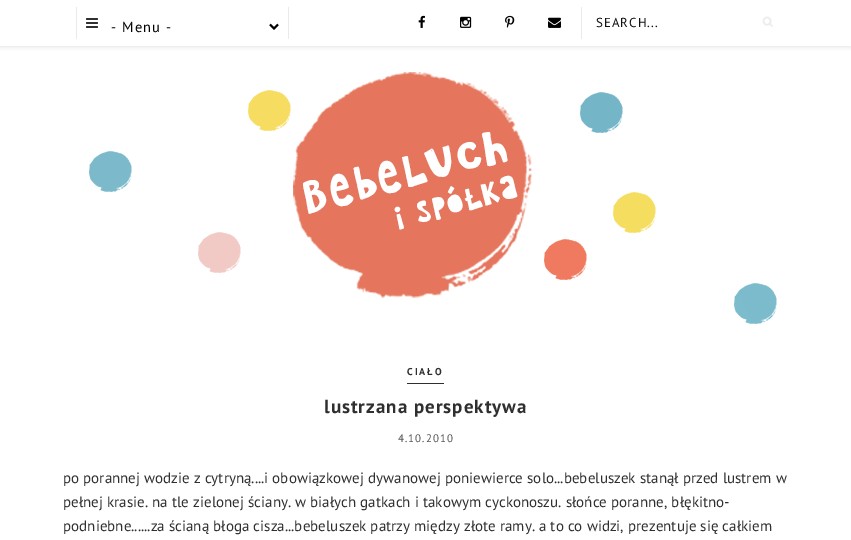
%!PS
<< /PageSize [851 540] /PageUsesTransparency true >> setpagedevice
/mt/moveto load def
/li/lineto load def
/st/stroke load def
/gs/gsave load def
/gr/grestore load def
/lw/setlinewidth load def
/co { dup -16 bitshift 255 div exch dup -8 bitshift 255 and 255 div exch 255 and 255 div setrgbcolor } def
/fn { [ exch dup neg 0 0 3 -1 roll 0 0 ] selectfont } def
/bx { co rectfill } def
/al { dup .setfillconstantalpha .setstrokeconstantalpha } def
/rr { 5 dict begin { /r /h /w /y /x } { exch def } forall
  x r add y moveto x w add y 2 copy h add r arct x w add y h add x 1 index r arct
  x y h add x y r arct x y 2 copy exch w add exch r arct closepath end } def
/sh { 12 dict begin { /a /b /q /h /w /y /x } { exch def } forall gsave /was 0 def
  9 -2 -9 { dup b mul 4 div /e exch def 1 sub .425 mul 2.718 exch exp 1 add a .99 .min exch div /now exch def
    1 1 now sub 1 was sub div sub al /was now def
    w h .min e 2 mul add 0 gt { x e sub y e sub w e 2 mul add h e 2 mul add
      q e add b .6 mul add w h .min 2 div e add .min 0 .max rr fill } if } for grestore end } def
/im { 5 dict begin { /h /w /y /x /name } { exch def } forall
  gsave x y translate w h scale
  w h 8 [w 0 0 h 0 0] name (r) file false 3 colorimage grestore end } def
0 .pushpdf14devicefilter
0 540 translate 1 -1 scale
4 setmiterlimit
0 0 851 540 16#FFFFFF bx
gs
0 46 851 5 rectclip
16#BEBEBE co
0 1 851 46 0 2.5 .46 sh
gr
76 7 1 32 16#EAEAEA bx
(media/1.raw) 86 18 12 10 im
16#000000 co
2 lw
270 24.5 mt 274 28.5 li 278 24.5 li st
288 7 1 32 16#EAEAEA bx
(media/2.raw) 418 15 7 13 im
(media/3.raw) 460 16 12 12 im
(media/4.raw) 505 15 10 13 im
(media/5.raw) 548 17 13 11 im
581 7 1 32 16#EAEAEA bx
(media/6.raw) 762 16 11 11 im
(media/7.raw) 89 72 688 252 im
407 383 37 1 16#2F2F2F bx
/PTSans-Regular 14.5 fn
16#000000 co
111 32 mt 1 0 (- Menu -) ashow
/PTSans-Regular 13 fn
16#111111 co
596 27 mt 1 0 (SEARCH...) ashow
/PTSans-Bold 10 fn
16#2F2F2F co
407 375 mt 2 0 (CIAŁO) ashow
/PTSans-Bold 19 fn
324 413 mt 1 0 (lustrzana perspektywa) ashow
/PTSans-Regular 11 fn
16#555555 co
398 442 mt 1 0 (4.10.2010) ashow
/PTSans-Regular 15 fn
16#2F2F2F co
63 483 mt .03 0 (po porannej wodzie z cytryną....i obowiązkowej dywanowej poniewierce solo...bebeluszek stanął przed lustrem w) ashow
63 507 mt .03 0 (pełnej krasie. na tle zielonej ściany. w białych gatkach i takowym cyckonoszu. słońce poranne, błękitno-) ashow
63 531 mt .03 0 (podniebne......za ścianą błoga cisza...bebeluszek patrzy między złote ramy. a to co widzi, prezentuje się całkiem) ashow
.poppdf14devicefilter showpage
